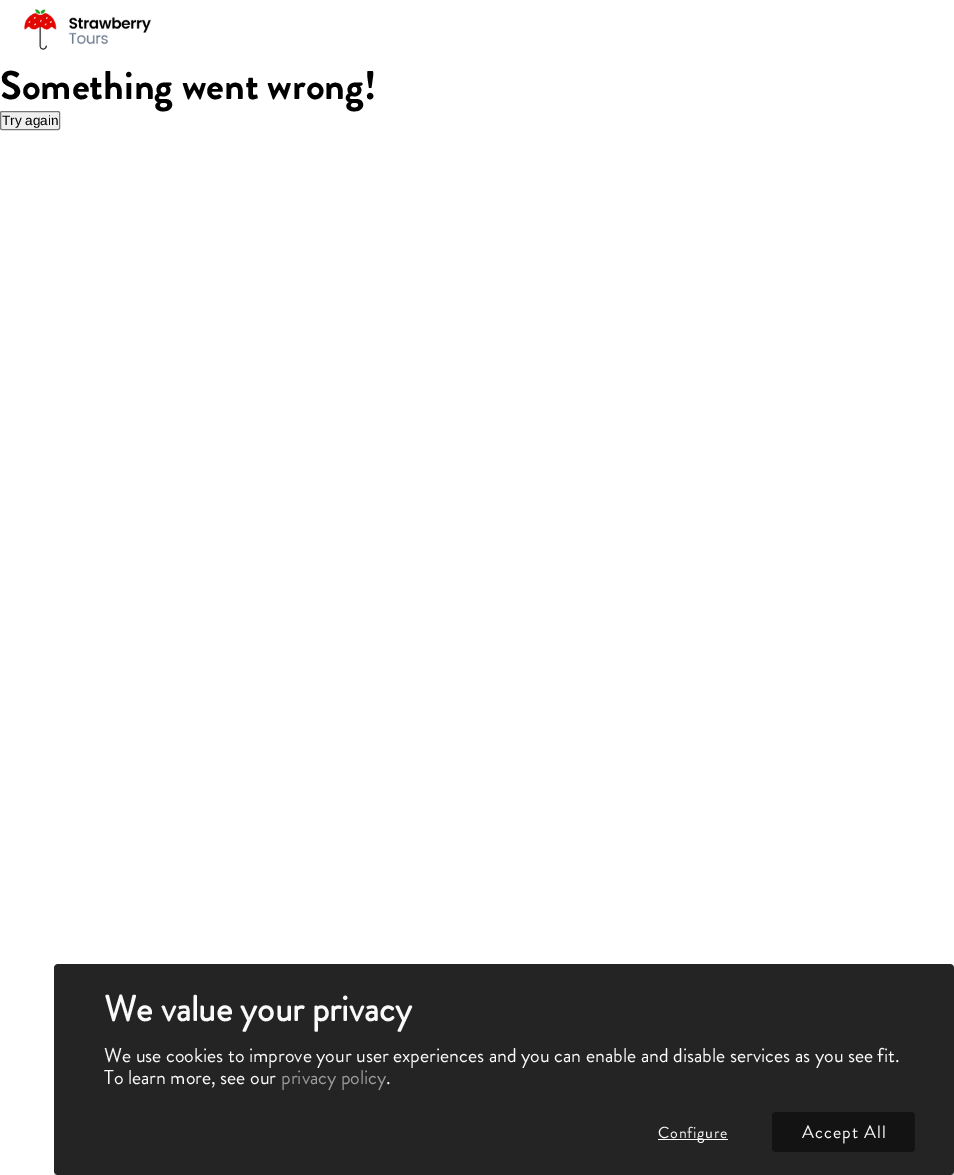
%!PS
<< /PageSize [954 1175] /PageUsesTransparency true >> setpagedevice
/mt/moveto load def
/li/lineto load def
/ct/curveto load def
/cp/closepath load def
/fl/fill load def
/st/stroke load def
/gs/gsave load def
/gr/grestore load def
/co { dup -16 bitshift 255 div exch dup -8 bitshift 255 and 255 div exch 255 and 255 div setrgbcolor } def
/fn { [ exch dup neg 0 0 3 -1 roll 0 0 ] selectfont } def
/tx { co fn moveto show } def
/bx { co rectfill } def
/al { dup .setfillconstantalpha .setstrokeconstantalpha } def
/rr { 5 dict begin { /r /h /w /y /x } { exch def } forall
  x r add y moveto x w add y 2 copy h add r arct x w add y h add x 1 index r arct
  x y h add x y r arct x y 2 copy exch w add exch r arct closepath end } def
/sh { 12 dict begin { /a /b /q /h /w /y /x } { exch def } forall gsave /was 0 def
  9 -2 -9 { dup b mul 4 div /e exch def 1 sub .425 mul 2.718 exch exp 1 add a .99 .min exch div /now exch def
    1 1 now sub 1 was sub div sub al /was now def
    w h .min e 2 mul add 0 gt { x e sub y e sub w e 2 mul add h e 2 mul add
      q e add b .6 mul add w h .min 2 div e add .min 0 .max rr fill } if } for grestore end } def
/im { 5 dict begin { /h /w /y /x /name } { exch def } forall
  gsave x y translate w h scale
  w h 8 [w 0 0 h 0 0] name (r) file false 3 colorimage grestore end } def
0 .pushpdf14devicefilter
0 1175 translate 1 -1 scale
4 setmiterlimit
0 0 954 1175 16#FFFFFF bx
(media/1.raw) 24 9 127 41 im
gs
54 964 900 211 rectclip
16#000000 co
59 969 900 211 4 5 .19 sh
54 968 900 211 4 3 .2 sh
gr
16#242424 co
58 964 mt 950 964 li 952 964 954 966 954 968 ct 954 1089 li 54 1089 li 54 968 li 54 966 56 964 58 964 ct cp fl
54 1089 mt 954 1089 li 954 1171 li 954 1173 952 1175 950 1175 ct 58 1175 li 56 1175 54 1173 54 1171 ct cp fl
658 1139 70 1 16#FFFFFF bx
16#131313 co
772 1112 143 40 4 rr fl
(Something went wrong!) 0 99 /BrandonGrotesque-Bold 40 16#000000 tx
16#EFEFEF co
.5 111.5 59 18 1.5 rr gs fl gr
16#767676 co
st
(Try again) 2 125 /LiberationSans-Regular 13.5 16#000000 tx
(We value your privacy) 104 1021 /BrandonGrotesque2-Bold 36 16#FAFAFA tx
(We use cookies to improve your user experiences and you can enable and disable services as you see fit.) 104 1062 /BrandonGrotesque-Regular 20 16#FAFAFA tx
(To learn more, see our) 104 1084 /BrandonGrotesque-Regular 20 16#FAFAFA tx
(privacy policy) 281 1084 /BrandonGrotesque-Regular 20 16#9C9999 tx
(.) 386 1084 /BrandonGrotesque-Regular 20 16#FAFAFA tx
/BrandonGrotesque-Regular 16 fn
658 1138 mt .75 0 (Configure) ashow
/BrandonGrotesque-Regular 18 fn
802 1138 mt 1 0 (Accept All) ashow
.poppdf14devicefilter showpage
